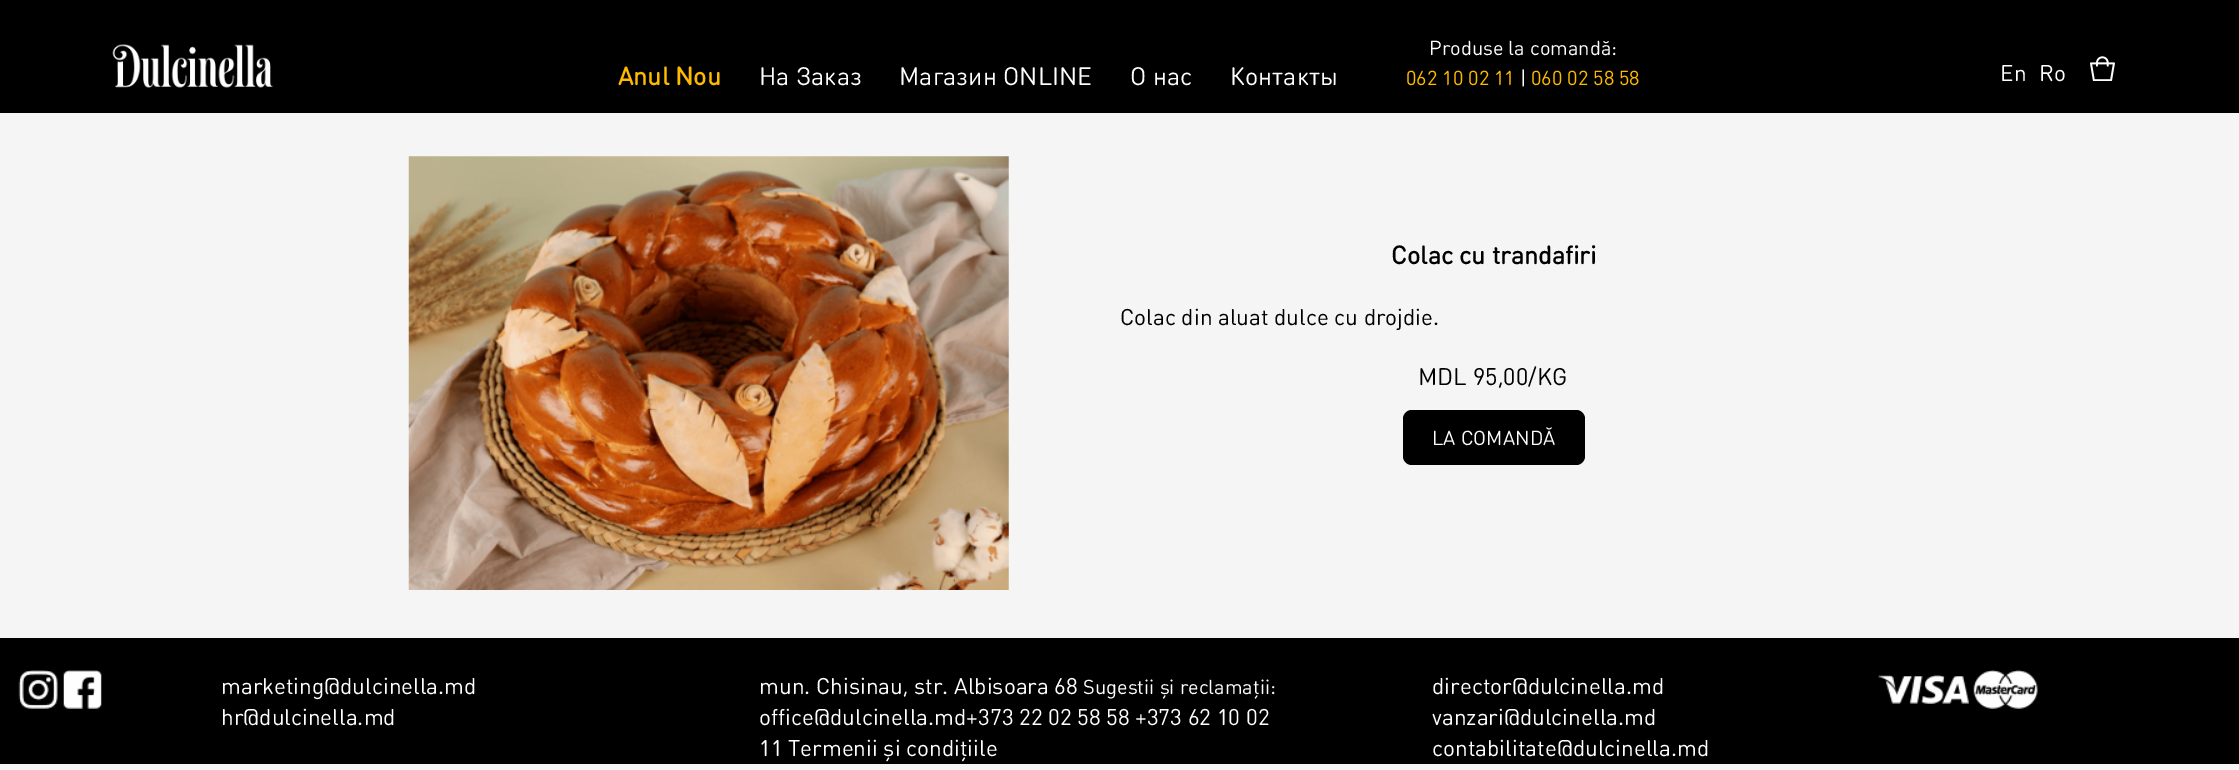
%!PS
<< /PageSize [2239 770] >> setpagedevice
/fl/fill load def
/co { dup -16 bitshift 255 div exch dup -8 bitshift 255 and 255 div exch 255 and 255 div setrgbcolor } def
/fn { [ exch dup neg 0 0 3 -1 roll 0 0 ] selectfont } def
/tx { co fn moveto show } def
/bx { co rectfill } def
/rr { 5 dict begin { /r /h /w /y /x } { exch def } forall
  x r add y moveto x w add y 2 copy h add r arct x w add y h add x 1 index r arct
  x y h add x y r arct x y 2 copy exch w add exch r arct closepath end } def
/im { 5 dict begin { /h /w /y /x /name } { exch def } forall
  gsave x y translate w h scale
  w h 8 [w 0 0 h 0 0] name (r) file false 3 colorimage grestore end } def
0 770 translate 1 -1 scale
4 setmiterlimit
0 0 2239 770 16#F5F5F5 bx
0 0 2239 113 16#000000 bx
(media/1.raw) 112 44 161 44 im
(media/2.raw) 2090 56 25 25 im
(media/3.raw) 408 156 601 434 im
1403 410 182 55 9 rr fl
0 638 2239 126 16#000000 bx
(media/4.raw) 18 670 40 39 im
(media/5.raw) 63 670 39 39 im
(media/6.raw) 1878 670 160 39 im
(Anul Nou) 618 85 /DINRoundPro-Bold 25 16#FEBA00 tx
(На Заказ) 759 85 /DINRoundPro-Regular 25 16#FFFFFF tx
(Магазин ONLINE) 899 85 /DINRoundPro-Regular 25 16#FFFFFF tx
(О нас) 1130 85 /DINRoundPro-Regular 25 16#FFFFFF tx
(Контакты) 1230 85 /DINRoundPro-Regular 25 16#FFFFFF tx
(Produse la comandă:) 1429 55 /DINRoundPro-Regular 20 16#FFFFFF tx
(062 10 02 11) 1406 85 /DINRoundPro-Regular 20 16#FEBA00 tx
(|) 1520 85 /DINRoundPro-Regular 20 16#FFFFFF tx
(060 02 58 58) 1531 85 /DINRoundPro-Regular 20 16#FEBA00 tx
(En) 2000 81 /DINRoundPro-Regular 22.5 16#FFFFFF tx
(Ro) 2039 81 /DINRoundPro-Regular 22.5 16#FFFFFF tx
(Colac cu trandafiri) 1391 264 /DINRoundPro-Bold 25 16#000000 tx
(Colac din aluat dulce cu drojdie.) 1120 325 /DINRoundPro-Regular 22.5 16#000000 tx
(MDL 95,00/KG) 1418 385 /DINRoundPro-Regular 23.75 16#000000 tx
(LA COMANDĂ) 1432 445 /DINRoundPro-Regular 20 16#FFFFFF tx
(marketing@dulcinella.md) 221 694 /DINRoundPro-Regular 22.5 16#FFFFFF tx
(hr@dulcinella.md) 221 725 /DINRoundPro-Regular 22.5 16#FFFFFF tx
(mun. Chisinau, str. Albisoara 68) 759 694 /DINRoundPro-Regular 22.5 16#FFFFFF tx
(Sugestii și reclamații:) 1083 694 /DINRoundPro-Regular 20 16#FFFFFF tx
(office@dulcinella.md+373 22 02 58 58) 759 725 /DINRoundPro-Regular 22.5 16#FFFFFF tx
(+373 62 10 02) 1135 725 /DINRoundPro-Regular 22.5 16#FFFFFF tx
(11) 759 756 /DINRoundPro-Regular 22.5 16#FFFFFF tx
(Termenii şi condiţiile) 788 756 /DINRoundPro-Regular 22.5 16#FFFFFF tx
(director@dulcinella.md) 1432 694 /DINRoundPro-Regular 22.5 16#FFFFFF tx
(vanzari@dulcinella.md) 1432 725 /DINRoundPro-Regular 22.5 16#FFFFFF tx
(contabilitate@dulcinella.md) 1432 756 /DINRoundPro-Regular 22.5 16#FFFFFF tx
showpage
